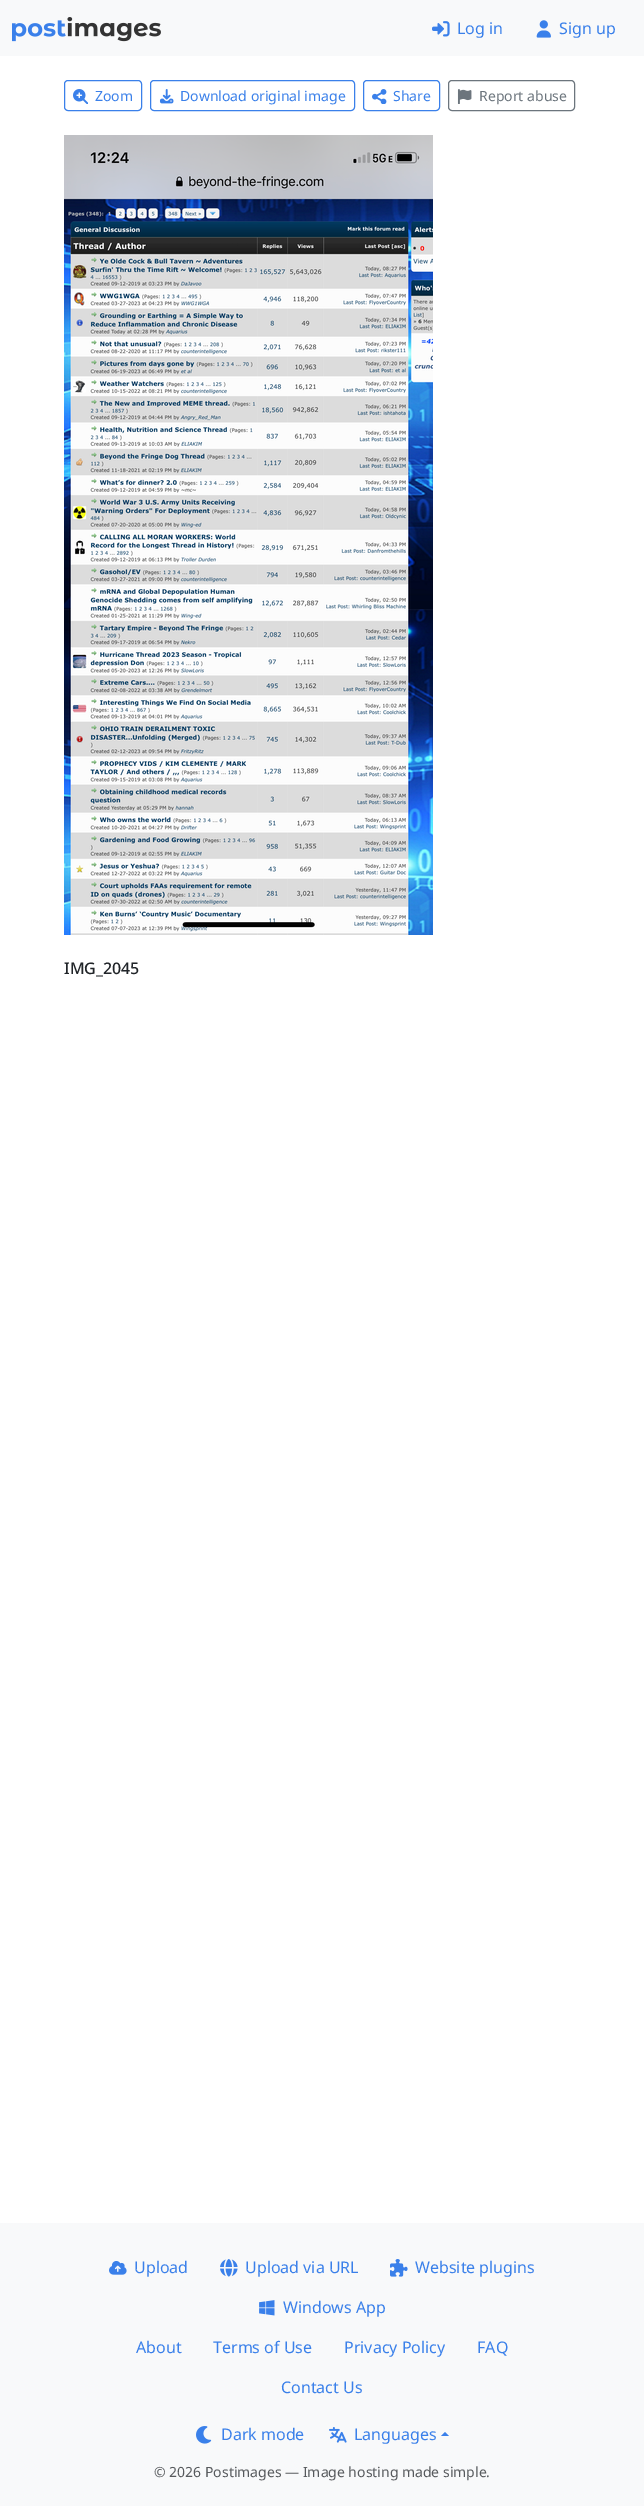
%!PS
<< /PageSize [644 2506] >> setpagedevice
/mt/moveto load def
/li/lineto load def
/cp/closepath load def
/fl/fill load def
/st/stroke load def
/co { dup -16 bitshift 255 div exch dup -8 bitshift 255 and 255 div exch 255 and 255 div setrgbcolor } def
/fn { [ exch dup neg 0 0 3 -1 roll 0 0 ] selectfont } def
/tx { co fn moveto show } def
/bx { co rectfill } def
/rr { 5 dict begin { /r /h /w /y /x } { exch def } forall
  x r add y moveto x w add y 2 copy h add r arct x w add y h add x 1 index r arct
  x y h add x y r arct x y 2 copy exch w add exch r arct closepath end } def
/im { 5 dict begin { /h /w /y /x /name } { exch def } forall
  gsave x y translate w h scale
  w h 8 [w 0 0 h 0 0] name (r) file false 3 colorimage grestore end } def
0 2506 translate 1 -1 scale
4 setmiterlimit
0 0 644 2506 16#FFFFFF bx
0 0 644 56 16#F8F9FA bx
(media/1.raw) 12 17 149 25 im
(media/2.raw) 432 21 18 16 im
(media/3.raw) 536 20 15 18 im
16#3A80EA co
64.5 80.5 77 30 3.5 rr st
(media/4.raw) 73 89 15 15 im
150.5 80.5 204 30 3.5 rr st
(media/5.raw) 159 89 15 15 im
363.5 80.5 76 30 3.5 rr st
(media/6.raw) 372 89 15 15 im
16#6C757D co
448.5 80.5 126 30 3.5 rr st
(media/7.raw) 457 89 15 15 im
(media/8.raw) 64 135 369 800 im
0 2223 644 283 16#F8F9FA bx
(media/9.raw) 109 2261 18 14 im
(media/10.raw) 220 2259 18 18 im
(media/11.raw) 390 2259 18 18 im
(media/12.raw) 259 2300 16 16 im
(media/13.raw) 196 2426 16 18 im
(media/14.raw) 329 2427 18 16 im
16#3A80EA co
449 2436 mt 441 2436 li 445 2432 li cp fl
(Log in) 457 34 /NotoSans-Regular 16 16#3A80EA tx
(Sign up) 559 34 /NotoSans-Regular 16 16#3A80EA tx
(Zoom) 95 101 /NotoSans-Regular 14 16#3A80EA tx
(Download original image) 180 101 /NotoSans-Regular 14 16#3A80EA tx
(Share) 393 101 /NotoSans-Regular 14 16#3A80EA tx
(Report abuse) 479 101 /NotoSans-Regular 14 16#6C757D tx
(IMG_2045) 64 974 /NotoSans-Medium 16 16#212529 tx
(Upload) 134 2273 /NotoSans-Regular 16 16#3A80EA tx
(Upload via URL) 245 2273 /NotoSans-Regular 16 16#3A80EA tx
(Website plugins) 415 2273 /NotoSans-Regular 16 16#3A80EA tx
(Windows App) 283 2313 /NotoSans-Regular 16 16#3A80EA tx
(About) 136 2353 /NotoSans-Regular 16 16#3A80EA tx
(Terms of Use) 213 2353 /NotoSans-Regular 16 16#3A80EA tx
(Privacy Policy) 344 2353 /NotoSans-Regular 16 16#3A80EA tx
(FAQ) 477 2353 /NotoSans-Regular 16 16#3A80EA tx
(Contact Us) 281 2393 /NotoSans-Regular 16 16#3A80EA tx
(Dark mode) 221 2440 /NotoSans-Regular 16 16#3A80EA tx
(Languages) 354 2440 /NotoSans-Regular 16 16#3A80EA tx
(© 2026 Postimages — Image hosting made simple.) 154 2477 /NotoSans-Regular 14 16#575A5D tx
showpage
